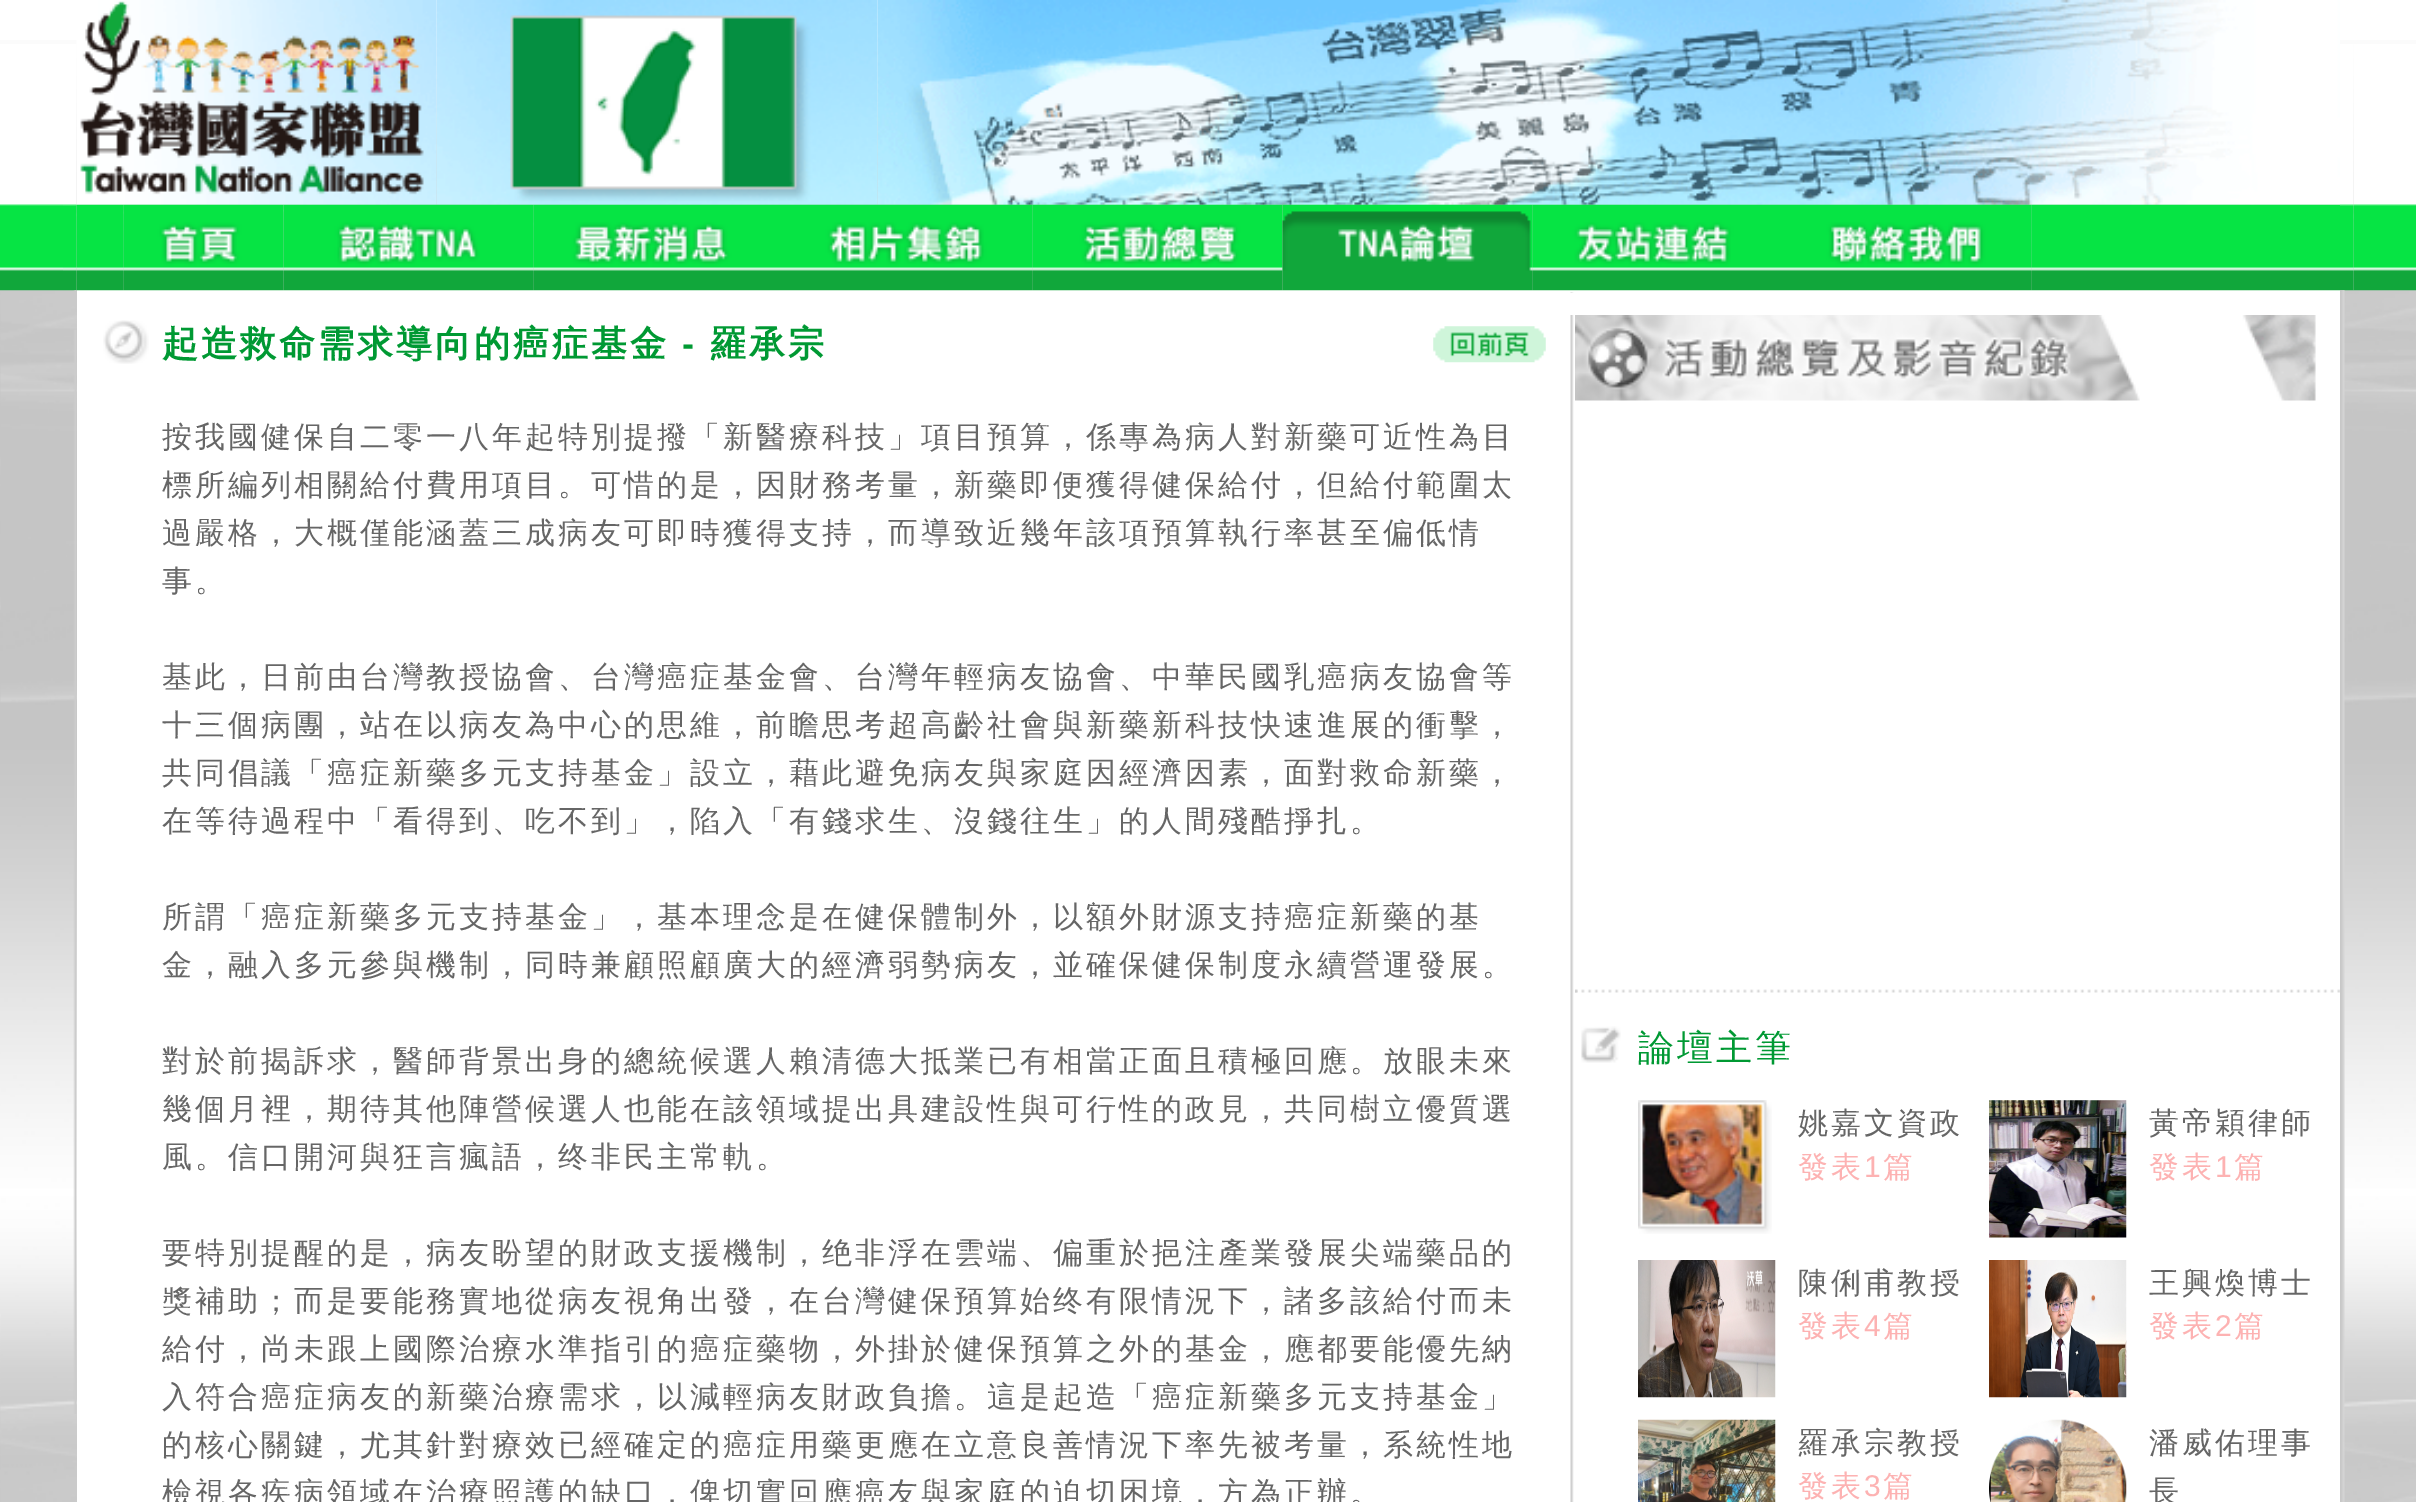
%!PS
<< /PageSize [2416 1502] >> setpagedevice
/mt/moveto load def
/co { dup -16 bitshift 255 div exch dup -8 bitshift 255 and 255 div exch 255 and 255 div setrgbcolor } def
/fn { [ exch dup neg 0 0 3 -1 roll 0 0 ] selectfont } def
/bx { co rectfill } def
/im { 5 dict begin { /h /w /y /x /name } { exch def } forall
  gsave x y translate w h scale
  w h 8 [w 0 0 h 0 0] name (r) file false 3 colorimage grestore end } def
0 1502 translate 1 -1 scale
4 setmiterlimit
0 0 2416 1502 16#FFFFFF bx
(media/1.raw) 0 40 2416 1462 im
(media/2.raw) 0 44 63 247 im
(media/3.raw) 2353 44 63 247 im
(media/4.raw) 63 44 14 247 im
(media/5.raw) 76 0 361 205 im
(media/6.raw) 436 0 442 205 im
(media/7.raw) 877 0 1463 205 im
(media/35.raw) 2340 290 5 1212 im
(media/8.raw) 2340 44 14 247 im
77 290 2263 1212 16#FFFFFF bx
(media/9.raw) 76 204 48 87 im
(media/10.raw) 123 204 161 87 im
(media/11.raw) 283 204 251 87 im
(media/12.raw) 533 204 250 87 im
(media/13.raw) 783 204 250 87 im
(media/14.raw) 1032 204 251 87 im
(media/15.raw) 1282 204 251 87 im
(media/16.raw) 1532 204 250 87 im
(media/17.raw) 1782 204 250 87 im
(media/18.raw) 2031 204 309 87 im
(media/19.raw) 73 330 4 1084 im
(media/20.raw) 73 290 4 1 im
(media/21.raw) 103 320 46 44 im
(media/22.raw) 1433 326 113 37 im
(media/23.raw) 1570 292 4 1210 im
1570 293 4 22 16#FFFFFF bx
(media/24.raw) 1575 315 565 86 im
(media/25.raw) 2139 315 177 86 im
(media/26.raw) 1575 989 765 4 im
(media/27.raw) 1575 989 3 4 im
(media/28.raw) 1581 1026 40 37 im
(media/29.raw) 1638 1100 134 134 im
(media/30.raw) 1989 1100 138 138 im
(media/31.raw) 1638 1260 138 138 im
(media/32.raw) 1989 1260 138 138 im
(media/33.raw) 1638 1419 138 83 im
(media/34.raw) 1989 1419 138 83 im
(media/36.raw) 2340 290 5 1 im
/WenQuanYiZenHei-Bold 36 fn
16#009933 co
162 356 mt 3 0 (起造救命需求導向的癌症基金) ashow
/LiberationSans-Bold 36 fn
682 356 mt 3 0 (-) ashow
/WenQuanYiZenHei-Bold 36 fn
710 356 mt 3 0 (羅承宗) ashow
/WenQuanYiZenHei-Medium 30 fn
16#666666 co
162 447 mt 3 0 (按我國健保自二零一八年起特別提撥「新醫療科技」項目預算，係專為病人對新藥可近性為目) ashow
162 495 mt 3 0 (標所編列相關給付費用項目。可惜的是，因財務考量，新藥即便獲得健保給付，但給付範圍太) ashow
162 543 mt 3 0 (過嚴格，大概僅能涵蓋三成病友可即時獲得支持，而導致近幾年該項預算執行率甚至偏低情) ashow
162 591 mt 3 0 (事。) ashow
162 687 mt 3 0 (基此，日前由台灣教授協會、台灣癌症基金會、台灣年輕病友協會、中華民國乳癌病友協會等) ashow
162 735 mt 3 0 (十三個病團，站在以病友為中心的思維，前瞻思考超高齡社會與新藥新科技快速進展的衝擊，) ashow
162 783 mt 3 0 (共同倡議「癌症新藥多元支持基金」設立，藉此避免病友與家庭因經濟因素，面對救命新藥，) ashow
162 831 mt 3 0 (在等待過程中「看得到、吃不到」，陷入「有錢求生、沒錢往生」的人間殘酷掙扎。) ashow
162 927 mt 3 0 (所謂「癌症新藥多元支持基金」，基本理念是在健保體制外，以額外財源支持癌症新藥的基) ashow
162 975 mt 3 0 (金，融入多元參與機制，同時兼顧照顧廣大的經濟弱勢病友，並確保健保制度永續營運發展。) ashow
162 1071 mt 3 0 (對於前揭訴求，醫師背景出身的總統候選人賴清德大抵業已有相當正面且積極回應。放眼未來) ashow
162 1119 mt 3 0 (幾個月裡，期待其他陣營候選人也能在該領域提出具建設性與可行性的政見，共同樹立優質選) ashow
162 1167 mt 3 0 (風。信口開河與狂言瘋語，终非民主常軌。) ashow
162 1263 mt 3 0 (要特別提醒的是，病友盼望的財政支援機制，绝非浮在雲端、偏重於挹注產業發展尖端藥品的) ashow
162 1311 mt 3 0 (獎補助；而是要能務實地從病友視角出發，在台灣健保預算始终有限情況下，諸多該給付而未) ashow
162 1359 mt 3 0 (給付，尚未跟上國際治療水準指引的癌症藥物，外掛於健保預算之外的基金，應都要能優先納) ashow
162 1407 mt 3 0 (入符合癌症病友的新藥治療需求，以減輕病友財政負擔。這是起造「癌症新藥多元支持基金」) ashow
162 1455 mt 3 0 (的核心關鍵，尤其針對療效已經確定的癌症用藥更應在立意良善情況下率先被考量，系統性地) ashow
162 1503 mt 3 0 (檢視各疾病領域在治療照護的缺口，俾切實回應癌友與家庭的迫切困境，方為正辦。) ashow
/WenQuanYiZenHei-Medium 36 fn
16#009933 co
1638 1060 mt 3 0 (論壇主筆) ashow
/WenQuanYiZenHei-Medium 30 fn
16#666666 co
1798 1133 mt 3 0 (姚嘉文資政) ashow
16#FDB2B2 co
1798 1177 mt 3 0 (發表) ashow
/LiberationSans-Regular 30 fn
1864 1177 mt 3 0 (1) ashow
/WenQuanYiZenHei-Medium 30 fn
1883 1177 mt 3 0 (篇) ashow
16#666666 co
2149 1133 mt 3 0 (黃帝穎律師) ashow
16#FDB2B2 co
2149 1177 mt 3 0 (發表) ashow
/LiberationSans-Regular 30 fn
2215 1177 mt 3 0 (1) ashow
/WenQuanYiZenHei-Medium 30 fn
2234 1177 mt 3 0 (篇) ashow
16#666666 co
1798 1293 mt 3 0 (陳俐甫教授) ashow
16#FDB2B2 co
1798 1336 mt 3 0 (發表) ashow
/LiberationSans-Regular 30 fn
1864 1336 mt 3 0 (4) ashow
/WenQuanYiZenHei-Medium 30 fn
1883 1336 mt 3 0 (篇) ashow
16#666666 co
2149 1293 mt 3 0 (王興煥博士) ashow
16#FDB2B2 co
2149 1336 mt 3 0 (發表) ashow
/LiberationSans-Regular 30 fn
2215 1336 mt 3 0 (2) ashow
/WenQuanYiZenHei-Medium 30 fn
2234 1336 mt 3 0 (篇) ashow
16#666666 co
1798 1453 mt 3 0 (羅承宗教授) ashow
16#FDB2B2 co
1798 1496 mt 3 0 (發表) ashow
/LiberationSans-Regular 30 fn
1864 1496 mt 3 0 (3) ashow
/WenQuanYiZenHei-Medium 30 fn
1883 1496 mt 3 0 (篇) ashow
16#666666 co
2149 1453 mt 3 0 (潘威佑理事) ashow
2149 1501 mt 3 0 (長) ashow
showpage
